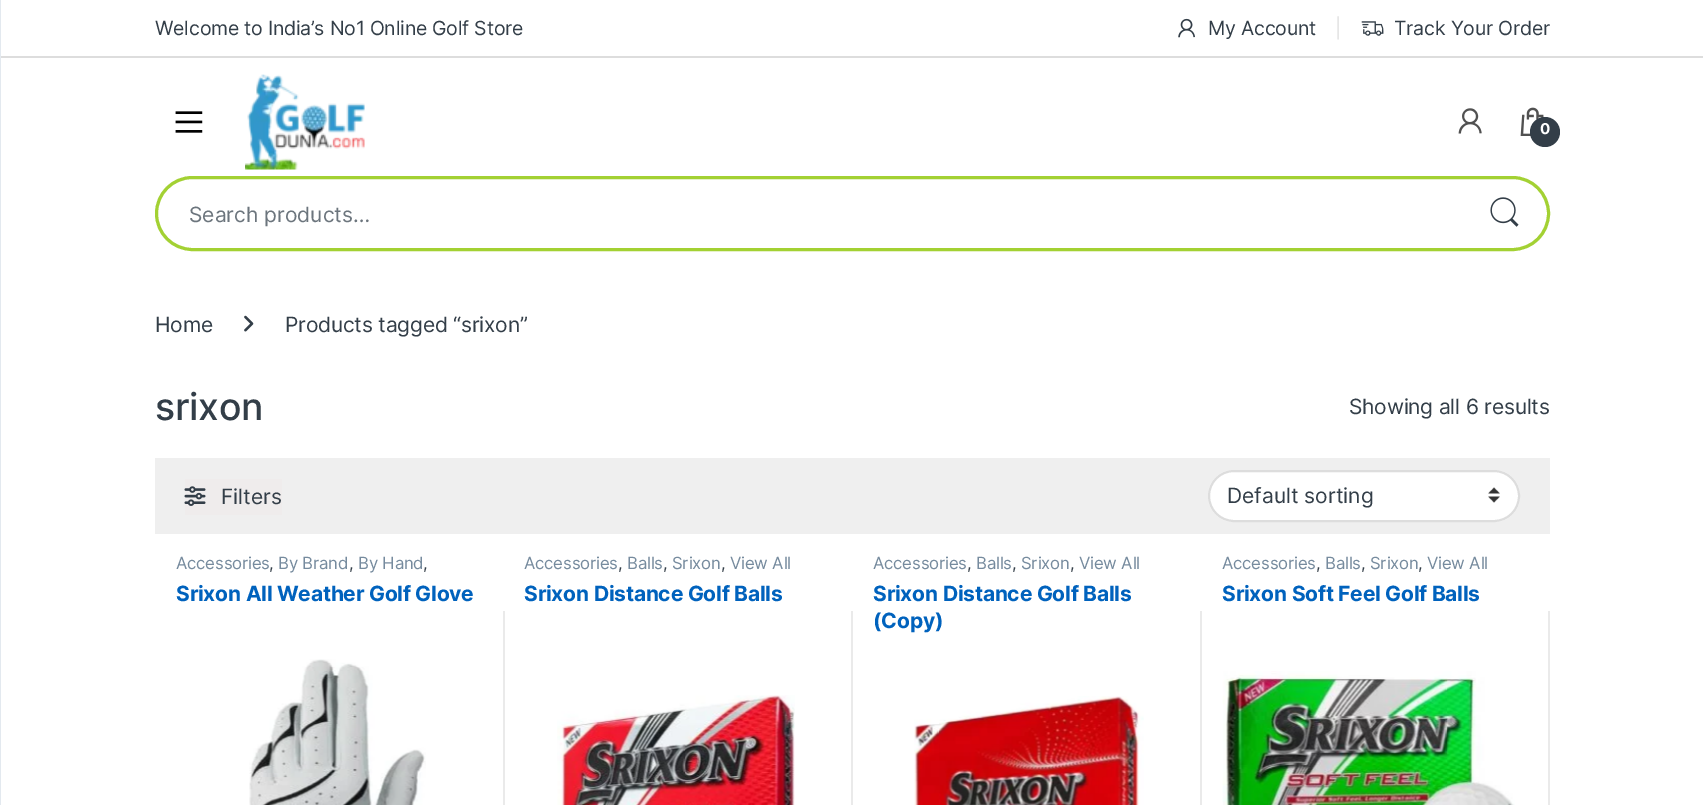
%!PS
<< /PageSize [1703 805] >> setpagedevice
/mt/moveto load def
/fl/fill load def
/st/stroke load def
/lw/setlinewidth load def
/co { dup -16 bitshift 255 div exch dup -8 bitshift 255 and 255 div exch 255 and 255 div setrgbcolor } def
/fn { [ exch dup neg 0 0 3 -1 roll 0 0 ] selectfont } def
/tx { co fn moveto show } def
/bx { co rectfill } def
/ci { newpath 0 360 arc closepath } def
/rr { 5 dict begin { /r /h /w /y /x } { exch def } forall
  x r add y moveto x w add y 2 copy h add r arct x w add y h add x 1 index r arct
  x y h add x y r arct x y 2 copy exch w add exch r arct closepath end } def
/im { 5 dict begin { /h /w /y /x /name } { exch def } forall
  gsave x y translate w h scale
  w h 8 [w 0 0 h 0 0] name (r) file false 3 colorimage grestore end } def
0 805 translate 1 -1 scale
4 setmiterlimit
0 0 1703 805 16#FFFFFF bx
0 56 1703 2 16#DDDDDD bx
(media/1.raw) 1178 18 17 20 im
(media/2.raw) 1361 21 23 15 im
0 0 1 805 16#E3E9EF bx
(media/3.raw) 175 111 28 22 im
(media/4.raw) 245 74 120 96 im
(media/5.raw) 1458 108 24 26 im
(media/6.raw) 1520 107 24 29 im
16#333E48 co
1545 132 15 ci fl
16#A3D133 co
3 lw
156.5 177.5 1392 72 36 rr st
(media/7.raw) 1490 197 29 30 im
(media/8.raw) 244 315 10 17 im
155 458 1395 76 16#EFEFEF bx
185 479 97 36 16#EFECEC bx
(media/9.raw) 184 486 22 20 im
16#FFFFFF co
1208 470 312 52 26 rr fl
(media/10.raw) 1488 487 12 16 im
16#DDDDDD co
2 lw
1209 471 310 50 25 rr st
(media/11.raw) 249 659 177 146 im
503 611 2 194 16#EAEAEA bx
(media/12.raw) 557 695 238 110 im
851 611 2 194 16#EAEAEA bx
(media/13.raw) 914 696 230 109 im
1200 611 2 194 16#EAEAEA bx
(media/14.raw) 1222 671 293 134 im
1548 611 2 194 16#EAEAEA bx
/Inter-Regular 19.5 fn
16#333E48 co
155 35 mt -.2 0 (Welcome to India’s No1 Online Golf Store) ashow
1208 35 mt -.2 0 (My Account) ashow
16#DDDDDD co
1335 35 mt -.2 0 (|) ashow
16#333E48 co
1394 35 mt -.2 0 (Track Your Order) ashow
/Inter-Bold 15 fn
16#FFFFFF co
1540 134 mt -.2 0 (0) ashow
(Search products…) 189 222 /Inter-Regular 21 16#6C757D tx
16#333E48 co
155 332 mt -.2 0 (Home) ashow
285 332 mt -.2 0 (Products tagged “srixon”) ashow
/Inter-Medium 37.5 fn
155 420 mt -.2 0 (srixon) ashow
/Inter-Regular 21 fn
1349 414 mt -.2 0 (Showing all 6 results) ashow
(Filters) 221 504 /Inter-Regular 21 16#333E48 tx
(Default sorting) 1227 503 /Inter-Regular 21 16#333E48 tx
/Inter-Regular 16.75 fn
16#768B9E co
176 569 mt -.2 0 (Accessories) ashow
16#333E48 co
269 569 mt -.2 0 (,) ashow
16#768B9E co
278 569 mt -.2 0 (By Brand) ashow
16#333E48 co
349 569 mt -.2 0 (,) ashow
16#768B9E co
358 569 mt -.2 0 (By Hand) ashow
16#333E48 co
423 569 mt -.2 0 (,) ashow
/Inter-Bold 21 fn
16#0062BD co
176 601 mt -.2 0 (Srixon All Weather Golf Glove) ashow
/Inter-Regular 16.75 fn
16#768B9E co
524 569 mt -.2 0 (Accessories) ashow
16#333E48 co
618 569 mt -.2 0 (,) ashow
16#768B9E co
627 569 mt -.2 0 (Balls) ashow
16#333E48 co
663 569 mt -.2 0 (,) ashow
16#768B9E co
672 569 mt -.2 0 (Srixon) ashow
16#333E48 co
721 569 mt -.2 0 (,) ashow
16#768B9E co
730 569 mt -.2 0 (View All) ashow
/Inter-Bold 21 fn
16#0062BD co
524 601 mt -.2 0 (Srixon Distance Golf Balls) ashow
/Inter-Regular 16.75 fn
16#768B9E co
873 569 mt -.2 0 (Accessories) ashow
16#333E48 co
967 569 mt -.2 0 (,) ashow
16#768B9E co
976 569 mt -.2 0 (Balls) ashow
16#333E48 co
1012 569 mt -.2 0 (,) ashow
16#768B9E co
1021 569 mt -.2 0 (Srixon) ashow
16#333E48 co
1070 569 mt -.2 0 (,) ashow
16#768B9E co
1079 569 mt -.2 0 (View All) ashow
/Inter-Bold 21 fn
16#0062BD co
873 601 mt -.2 0 (Srixon Distance Golf Balls) ashow
873 628 mt -.2 0 (\(Copy\)) ashow
/Inter-Regular 16.75 fn
16#768B9E co
1222 569 mt -.2 0 (Accessories) ashow
16#333E48 co
1316 569 mt -.2 0 (,) ashow
16#768B9E co
1325 569 mt -.2 0 (Balls) ashow
16#333E48 co
1361 569 mt -.2 0 (,) ashow
16#768B9E co
1370 569 mt -.2 0 (Srixon) ashow
16#333E48 co
1418 569 mt -.2 0 (,) ashow
16#768B9E co
1427 569 mt -.2 0 (View All) ashow
/Inter-Bold 21 fn
16#0062BD co
1222 601 mt -.2 0 (Srixon Soft Feel Golf Balls) ashow
showpage
